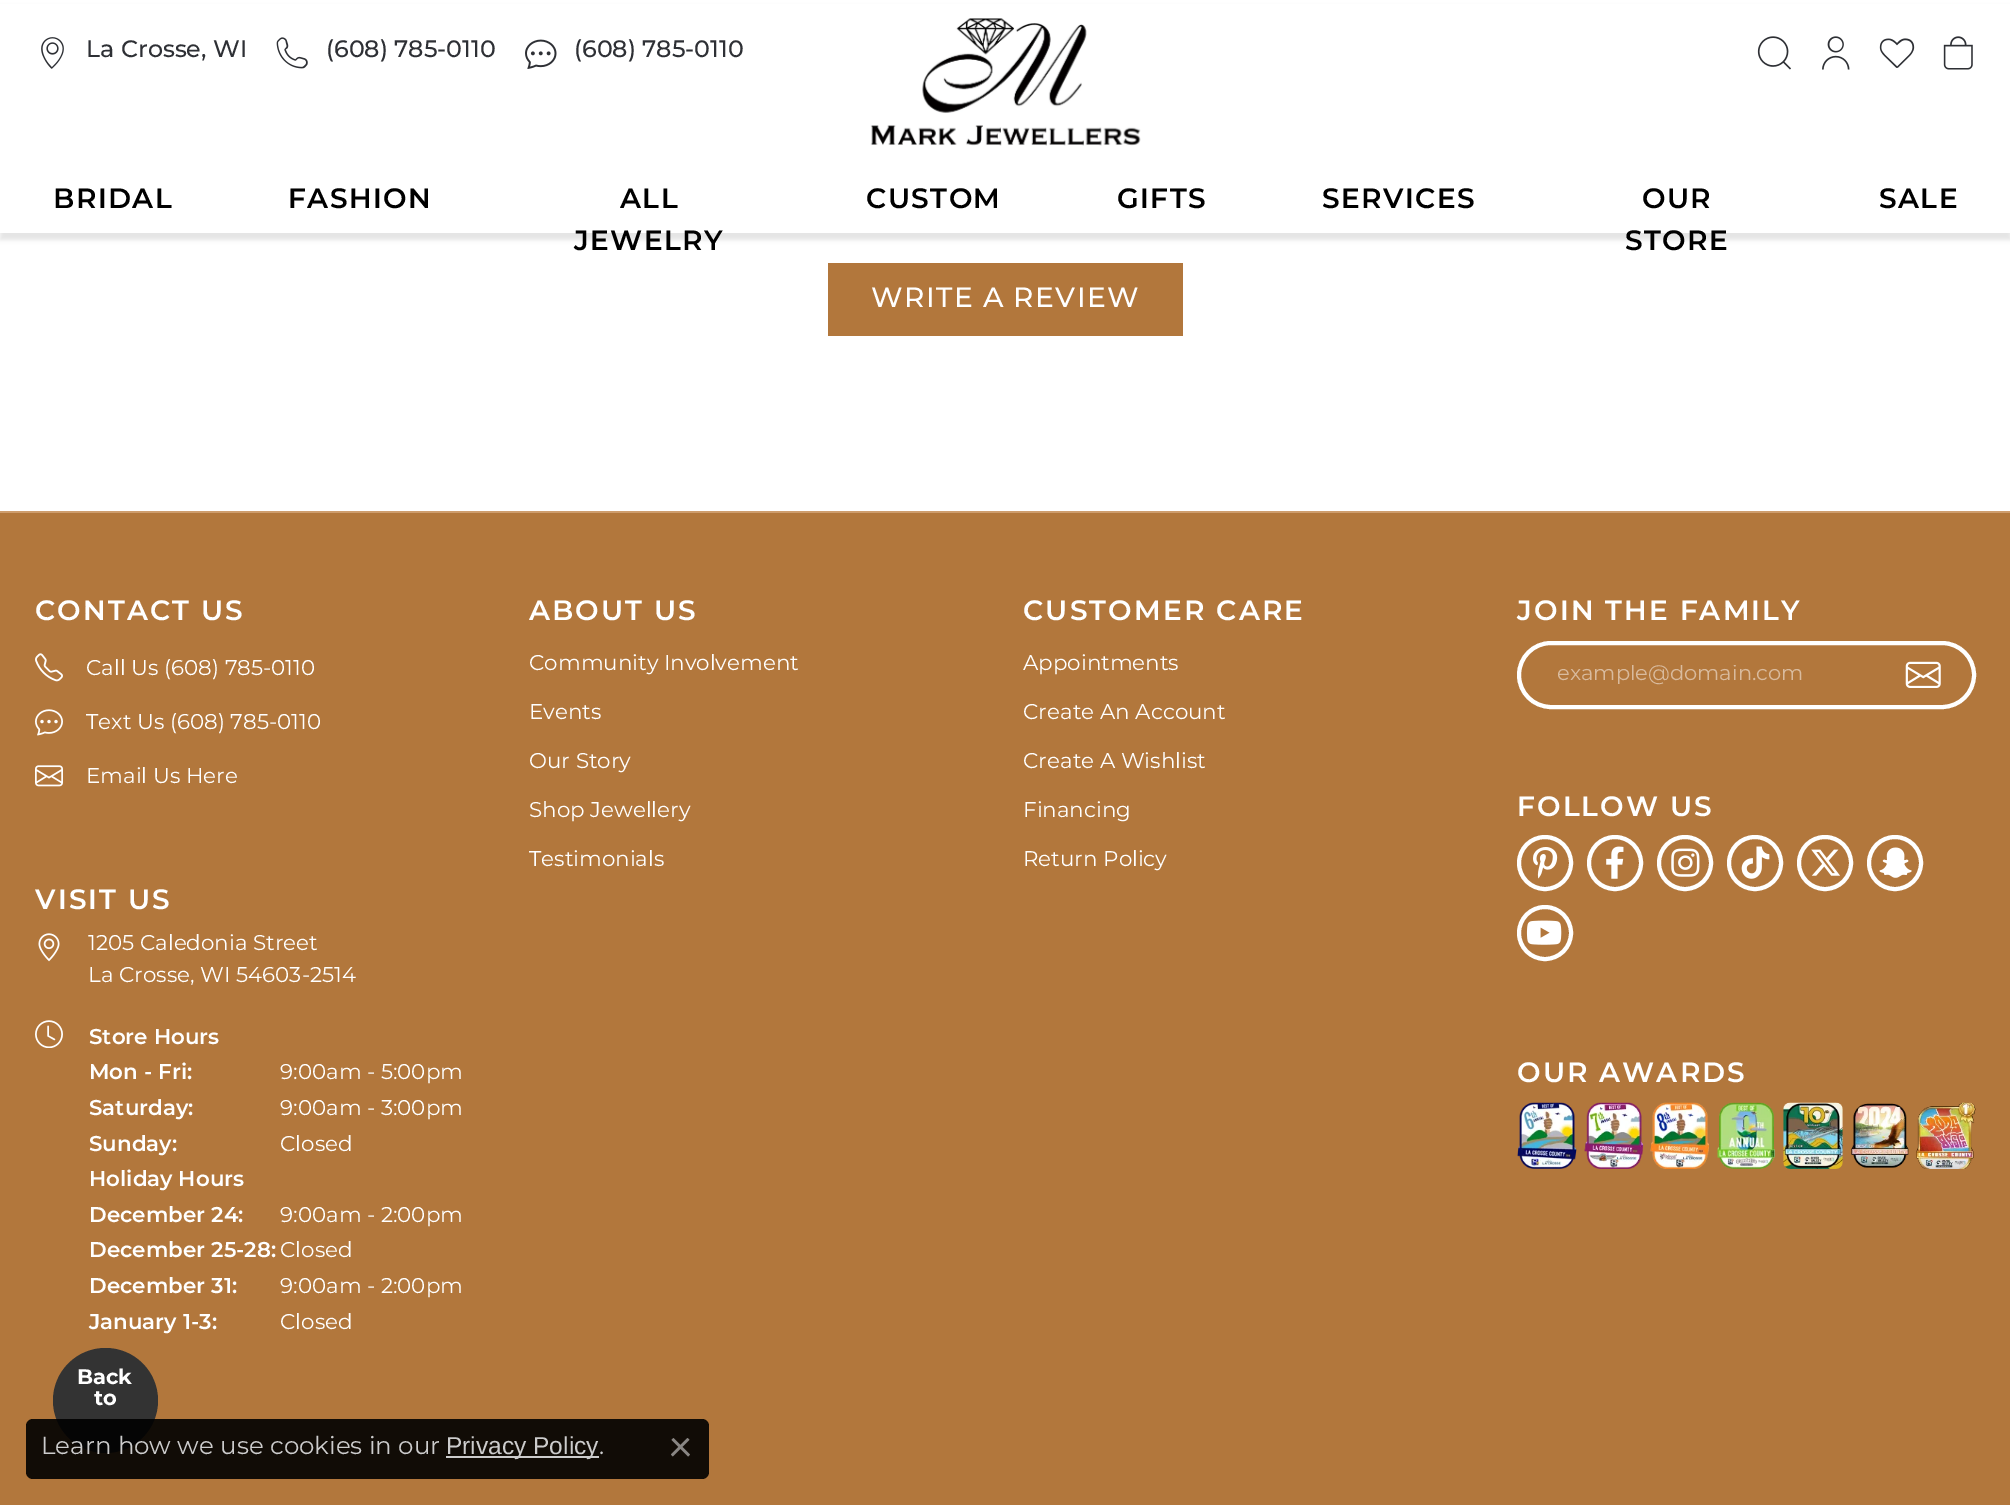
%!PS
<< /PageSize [2010 1505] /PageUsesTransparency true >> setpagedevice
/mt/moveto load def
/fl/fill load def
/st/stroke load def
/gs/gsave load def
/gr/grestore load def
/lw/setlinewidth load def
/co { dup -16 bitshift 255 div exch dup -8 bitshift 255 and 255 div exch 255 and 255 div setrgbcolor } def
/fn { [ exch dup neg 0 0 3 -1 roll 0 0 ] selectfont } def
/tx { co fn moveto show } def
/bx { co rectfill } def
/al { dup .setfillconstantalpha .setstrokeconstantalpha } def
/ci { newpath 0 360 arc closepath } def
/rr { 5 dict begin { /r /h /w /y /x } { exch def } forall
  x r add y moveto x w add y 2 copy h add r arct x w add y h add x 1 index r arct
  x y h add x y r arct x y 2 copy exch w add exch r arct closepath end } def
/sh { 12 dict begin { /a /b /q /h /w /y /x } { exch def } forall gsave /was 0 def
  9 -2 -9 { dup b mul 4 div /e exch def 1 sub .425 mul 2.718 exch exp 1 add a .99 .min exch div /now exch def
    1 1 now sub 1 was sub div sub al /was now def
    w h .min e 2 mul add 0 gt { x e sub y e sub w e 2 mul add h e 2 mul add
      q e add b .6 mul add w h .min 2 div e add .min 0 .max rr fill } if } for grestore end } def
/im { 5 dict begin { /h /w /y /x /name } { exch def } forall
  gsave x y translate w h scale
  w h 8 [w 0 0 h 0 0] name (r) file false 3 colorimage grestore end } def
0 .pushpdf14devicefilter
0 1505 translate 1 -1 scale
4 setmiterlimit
0 0 2010 1505 16#FFFFFF bx
16#000000 co
0 7 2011 233 0 2 .1 sh
0 4 2010 229 16#FFFFFF bx
(media/1.raw) 41 37 23 32 im
(media/2.raw) 276 37 32 32 im
(media/3.raw) 525 39 32 30 im
(media/4.raw) 1757 36 34 34 im
(media/5.raw) 1822 36 28 34 im
(media/6.raw) 1879 38 36 30 im
(media/7.raw) 1943 36 30 34 im
(media/8.raw) 870 18 271 128 im
828 263 355 73 16#B2773C bx
0 513 2010 992 16#B2773C bx
0 511 2010 2 16#CE9D6D bx
(media/9.raw) 35 653 28 29 im
(media/10.raw) 35 709 28 27 im
(media/11.raw) 35 765 28 22 im
(media/12.raw) 38 933 22 29 im
(media/13.raw) 35 1020 28 28 im
16#FFFFFF co
4 lw
1519 643 455 64 32 rr st
(media/14.raw) 1905 661 36 27 im
1545 863 26 ci st
(media/15.raw) 1533 847 25 32 im
1615 863 26 ci st
(media/16.raw) 1606 846 18 33 im
1685 863 26 ci st
(media/17.raw) 1671 848 29 29 im
1755 863 26 ci st
(media/18.raw) 1741 846 29 33 im
1825 863 26 ci st
(media/19.raw) 1811 849 29 27 im
1895 863 26 ci st
(media/20.raw) 1879 847 33 31 im
1545 933 26 ci st
(media/21.raw) 1526 920 36 25 im
(media/22.raw) 1517 1102 60 67 im
(media/23.raw) 1584 1102 60 67 im
(media/24.raw) 1650 1102 59 67 im
(media/25.raw) 1717 1102 58 67 im
(media/26.raw) 1783 1102 60 67 im
(media/27.raw) 1851 1103 58 65 im
(media/28.raw) 1916 1102 60 67 im
16#333333 co
105.5 1400.5 52.5 ci fl
0.9 al
16#000000 co
26 1419 683 60 7 rr fl
1 al
446 1456 153 2 16#CCCCCC bx
(media/29.raw) 671 1438 19 19 im
(La Crosse, WI) 86 57 /Montserrat-Medium 23.75 16#2E3035 tx
(\(608\) 785-0110) 326 57 /Montserrat-Medium 23.75 16#2E3035 tx
(\(608\) 785-0110) 574 57 /Montserrat-Medium 23.75 16#2E3035 tx
/Montserrat-SemiBold 28 fn
16#000000 co
53 208 mt 1.4 0 (BRIDAL) ashow
288 208 mt 1.4 0 (FASHION) ashow
620 208 mt 1.4 0 (ALL) ashow
574 250 mt 1.4 0 (JEWELRY) ashow
866 208 mt 1.4 0 (CUSTOM) ashow
1117 208 mt 1.4 0 (GIFTS) ashow
1322 208 mt 1.4 0 (SERVICES) ashow
1642 208 mt 1.4 0 (OUR) ashow
1625 250 mt 1.4 0 (STORE) ashow
1879 208 mt 1.4 0 (SALE) ashow
/Montserrat-Medium 28 fn
16#FFFFFF co
871 307 mt 1.4 0 (WRITE A REVIEW) ashow
/Montserrat-SemiBold 28 fn
35 620 mt 2.1 0 (CONTACT US) ashow
(Call Us \(608\) 785-0110) 86 675 /Montserrat-Regular 21.4 16#FFFFFF tx
(Text Us \(608\) 785-0110) 86 729 /Montserrat-Regular 21.4 16#FFFFFF tx
(Email Us Here) 86 783 /Montserrat-Regular 21.4 16#FFFFFF tx
/Montserrat-SemiBold 28 fn
35 909 mt 2.1 0 (VISIT US) ashow
(1205 Caledonia Street) 88 950 /Montserrat-Regular 21.4 16#FFFFFF tx
(La Crosse, WI 54603-2514) 88 982 /Montserrat-Regular 21.4 16#FFFFFF tx
(Store Hours) 89 1044 /Montserrat-SemiBold 21.4 16#FFFFFF tx
(Mon - Fri:) 89 1079 /Montserrat-SemiBold 21.4 16#FFFFFF tx
(9:00am - 5:00pm) 280 1079 /Montserrat-Regular 21.4 16#FFFFFF tx
(Saturday:) 89 1115 /Montserrat-SemiBold 21.4 16#FFFFFF tx
(9:00am - 3:00pm) 280 1115 /Montserrat-Regular 21.4 16#FFFFFF tx
(Sunday:) 89 1151 /Montserrat-SemiBold 21.4 16#FFFFFF tx
(Closed) 280 1151 /Montserrat-Regular 21.4 16#FFFFFF tx
(Holiday Hours) 89 1186 /Montserrat-SemiBold 21.4 16#FFFFFF tx
(December 24:) 89 1222 /Montserrat-SemiBold 21.4 16#FFFFFF tx
(9:00am - 2:00pm) 280 1222 /Montserrat-Regular 21.4 16#FFFFFF tx
(December 25-28:) 89 1257 /Montserrat-SemiBold 21.4 16#FFFFFF tx
(Closed) 280 1257 /Montserrat-Regular 21.4 16#FFFFFF tx
(December 31:) 89 1293 /Montserrat-SemiBold 21.4 16#FFFFFF tx
(9:00am - 2:00pm) 280 1293 /Montserrat-Regular 21.4 16#FFFFFF tx
(January 1-3:) 89 1329 /Montserrat-SemiBold 21.4 16#FFFFFF tx
(Closed) 280 1329 /Montserrat-Regular 21.4 16#FFFFFF tx
/Montserrat-SemiBold 28 fn
529 620 mt 2.1 0 (ABOUT US) ashow
(Community Involvement) 529 670 /Montserrat-Regular 21.4 16#FFFFFF tx
(Events) 529 719 /Montserrat-Regular 21.4 16#FFFFFF tx
(Our Story) 529 768 /Montserrat-Regular 21.4 16#FFFFFF tx
(Shop Jewellery) 529 817 /Montserrat-Regular 21.4 16#FFFFFF tx
(Testimonials) 529 866 /Montserrat-Regular 21.4 16#FFFFFF tx
/Montserrat-SemiBold 28 fn
1023 620 mt 2.1 0 (CUSTOMER CARE) ashow
(Appointments) 1023 670 /Montserrat-Regular 21.4 16#FFFFFF tx
(Create An Account) 1023 719 /Montserrat-Regular 21.4 16#FFFFFF tx
(Create A Wishlist) 1023 768 /Montserrat-Regular 21.4 16#FFFFFF tx
(Financing) 1023 817 /Montserrat-Regular 21.4 16#FFFFFF tx
(Return Policy) 1023 866 /Montserrat-Regular 21.4 16#FFFFFF tx
/Montserrat-SemiBold 28 fn
1517 620 mt 2.1 0 (JOIN THE FAMILY) ashow
gs
1558 665 318 21 rectclip
(example@domain.com) 1557 680 /Montserrat-Regular 21 16#D9BB9E tx
gr
1517 816 mt 2.1 0 (FOLLOW US) ashow
1517 1082 mt 2.1 0 (OUR AWARDS) ashow
(Back) 77 1384 /Montserrat-Bold 21 16#FFFFFF tx
(to) 94 1405 /Montserrat-Bold 21 16#FFFFFF tx
(Learn how we use cookies in our) 41 1454 /Montserrat-Regular 24.5 16#CCCCCC tx
(Privacy Policy) 446 1454 /LiberationSans-Regular 24.5 16#CCCCCC tx
(.) 599 1454 /Montserrat-Regular 24.5 16#CCCCCC tx
.poppdf14devicefilter showpage
